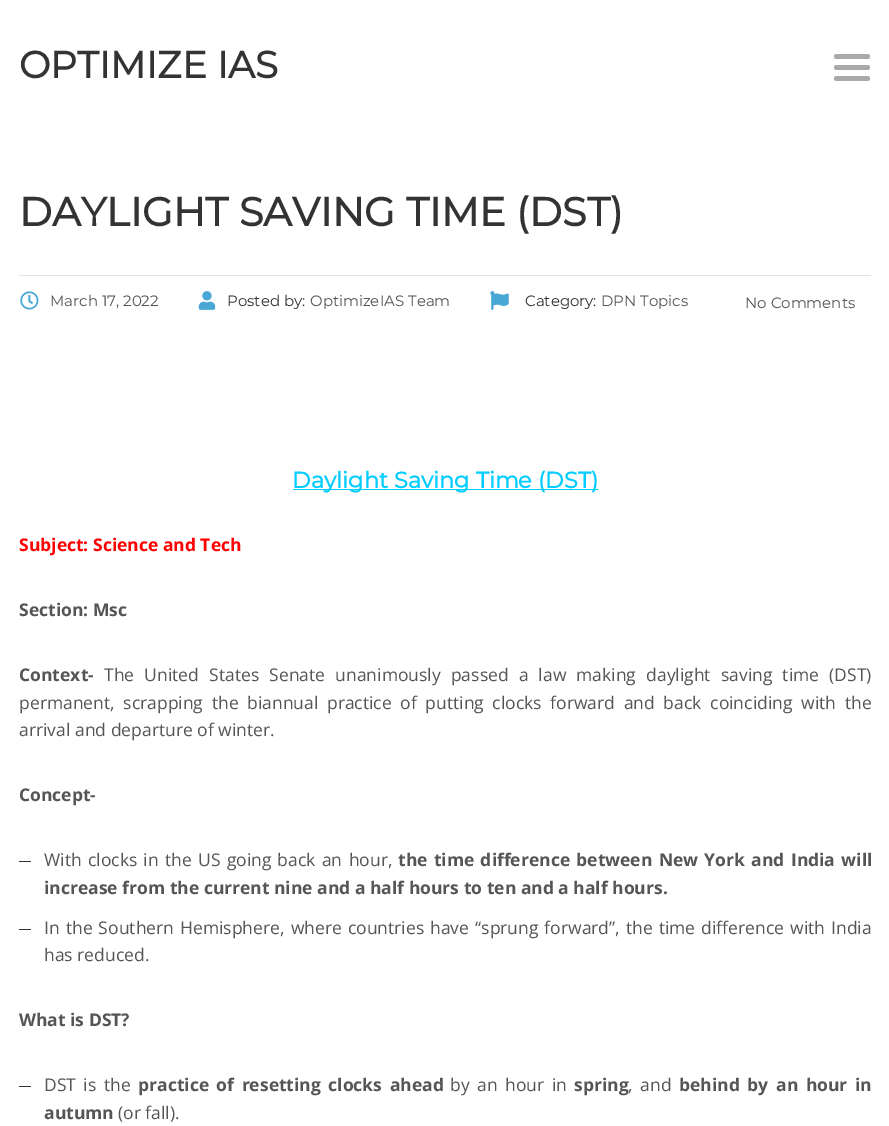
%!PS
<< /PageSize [889 1126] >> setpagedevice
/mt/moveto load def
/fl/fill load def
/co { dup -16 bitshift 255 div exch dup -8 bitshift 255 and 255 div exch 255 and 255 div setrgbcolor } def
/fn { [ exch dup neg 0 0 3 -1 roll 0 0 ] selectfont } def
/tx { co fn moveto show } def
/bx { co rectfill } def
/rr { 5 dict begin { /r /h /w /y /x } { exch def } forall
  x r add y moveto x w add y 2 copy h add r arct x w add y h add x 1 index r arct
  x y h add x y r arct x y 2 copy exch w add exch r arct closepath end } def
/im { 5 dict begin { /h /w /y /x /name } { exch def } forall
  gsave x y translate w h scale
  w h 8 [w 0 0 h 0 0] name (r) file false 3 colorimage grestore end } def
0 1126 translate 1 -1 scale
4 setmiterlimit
0 0 889 1126 16#FFFFFF bx
16#AAAAAA co
834 54 36 5 2.5 rr fl
834 65 36 5 2.5 rr fl
834 76 36 5 2.5 rr fl
19 275 852 1 16#E1E2E4 bx
(media/1.raw) 20 291 19 19 im
(media/2.raw) 198 291 18 19 im
(media/3.raw) 490 291 19 19 im
293 489 305 1 16#00CCFF bx
19 861 12 1 16#333333 bx
19 929 12 1 16#333333 bx
19 1086 12 1 16#333333 bx
(OPTIMIZE IAS) 19 78 /Montserrat-Bold 37.5 16#333333 tx
(DAYLIGHT SAVING TIME \(DST\)) 19 226 /Montserrat-Bold 40 16#333333 tx
(March 17, 2022) 50 306 /Montserrat-Thin 15 16#555555 tx
(Posted by:) 227 306 /Montserrat-Thin 15 16#333333 tx
(OptimizeIAS Team) 310 306 /Montserrat-Thin 15 16#555555 tx
(Category:) 525 306 /Montserrat-Thin 15 16#333333 tx
(DPN Topics) 601 306 /Montserrat-Thin 15 16#555555 tx
(No Comments) 745 308 /Montserrat-Thin 15 16#555555 tx
(Daylight Saving Time \(DST\)) 292 488 /Montserrat-Bold 22.5 16#00CCFF tx
(Subject: Science and Tech) 19 551 /OpenSans-Bold 17.5 16#FF0000 tx
(Section: Msc) 19 616 /OpenSans-Bold 17.5 16#555555 tx
(Context-) 19 681 /OpenSans-Bold 17.5 16#555555 tx
/OpenSans-Regular 17.5 fn
104 681 mt 5.6 0 32 (The United States Senate unanimously passed a law making daylight saving time \(DST\)) widthshow
19 709 mt 4.1 0 32 (permanent, scrapping the biannual practice of putting clocks forward and back coinciding with the) widthshow
(arrival and departure of winter.) 19 736 /OpenSans-Regular 17.5 16#555555 tx
(Concept-) 19 801 /OpenSans-Bold 17.5 16#555555 tx
/OpenSans-Regular 17.5 fn
44 866 mt 1.75 0 32 (With clocks in the US going back an hour,) widthshow
/OpenSans-Bold 17.5 fn
398 866 mt 1.75 0 32 (the time difference between New York and India will) widthshow
(increase from the current nine and a half hours to ten and a half hours.) 44 894 /OpenSans-Bold 17.5 16#555555 tx
/OpenSans-Regular 17.5 fn
44 934 mt 1.5 0 32 (In the Southern Hemisphere, where countries have “sprung forward”, the time difference with India) widthshow
(has reduced.) 44 961 /OpenSans-Regular 17.5 16#555555 tx
(What is DST?) 19 1026 /OpenSans-Bold 17.5 16#555555 tx
/OpenSans-Regular 17.5 fn
44 1091 mt 3 0 32 (DST is the) widthshow
/OpenSans-Bold 17.5 fn
138 1091 mt 3 0 32 (practice of resetting clocks ahead) widthshow
/OpenSans-Regular 17.5 fn
450 1091 mt 3 0 32 (by an hour in) widthshow
(spring) 574 1091 /OpenSans-Bold 17.5 16#555555 tx
/OpenSans-Regular 17.5 fn
628 1091 mt 3 0 32 (, and) widthshow
/OpenSans-Bold 17.5 fn
679 1091 mt 3 0 32 (behind by an hour in) widthshow
(autumn) 44 1119 /OpenSans-Bold 17.5 16#555555 tx
(\(or fall\).) 118 1119 /OpenSans-Regular 17.5 16#555555 tx
showpage
